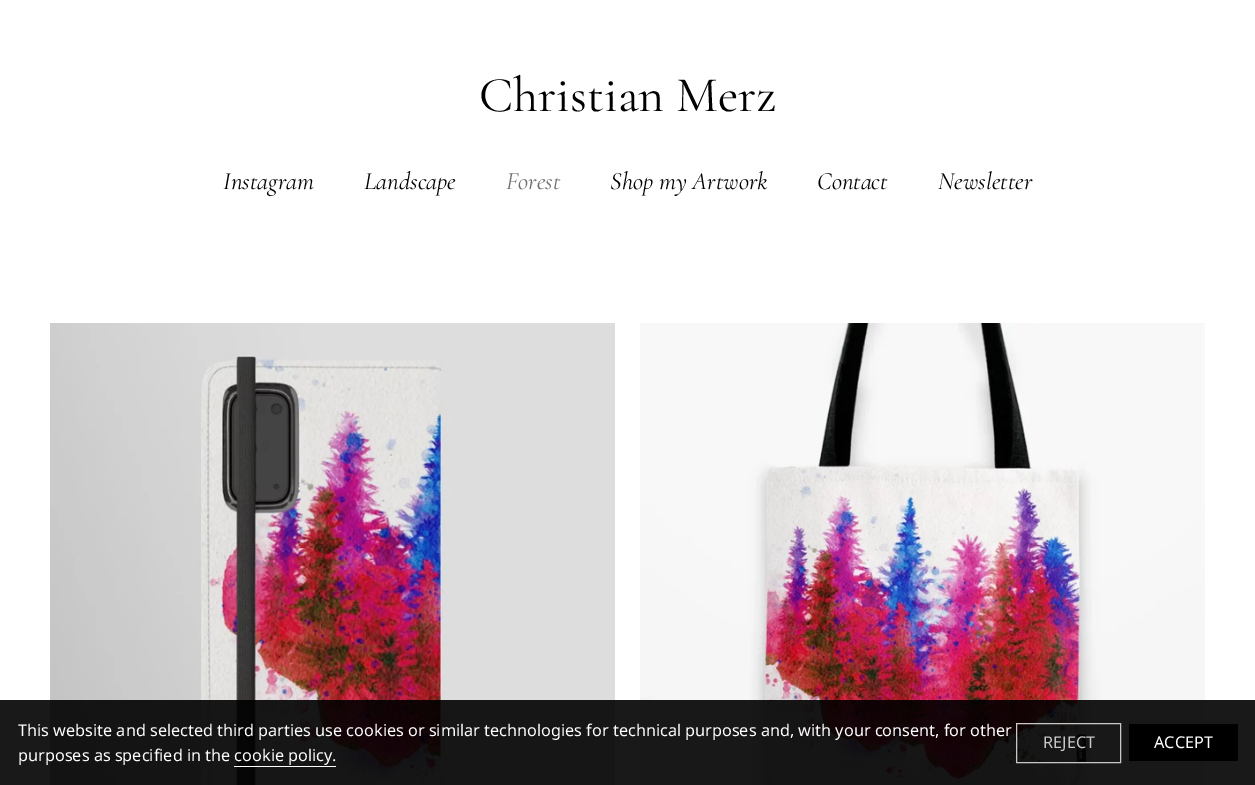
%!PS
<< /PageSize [1255 785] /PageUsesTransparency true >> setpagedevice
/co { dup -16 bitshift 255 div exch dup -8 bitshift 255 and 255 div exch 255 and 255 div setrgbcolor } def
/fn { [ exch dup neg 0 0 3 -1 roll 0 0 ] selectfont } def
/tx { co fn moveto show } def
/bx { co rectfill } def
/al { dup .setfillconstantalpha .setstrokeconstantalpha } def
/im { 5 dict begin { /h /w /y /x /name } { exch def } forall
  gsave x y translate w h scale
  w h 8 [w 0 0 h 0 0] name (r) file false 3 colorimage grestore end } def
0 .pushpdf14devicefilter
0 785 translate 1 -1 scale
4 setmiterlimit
0 0 1255 785 16#FFFFFF bx
(media/1.raw) 50 323 565 462 im
(media/2.raw) 640 323 565 462 im
0.9 al
0 700 1255 85 16#000000 bx
1 al
234 766 102 1 16#FFFFFF bx
16#C8C8C8 co
1016.5 723.5 104 39 rectstroke
1129 724 109 37 16#000000 bx
(Christian Merz) 479 111 /CormorantGaramond-Regular 50 16#000000 tx
(Instagram) 223 189 /CormorantGaramond-Italic 25 16#000000 tx
(Landscape) 364 189 /CormorantGaramond-Italic 25 16#000000 tx
(Forest) 506 189 /CormorantGaramond-Italic 25 16#6F6F6F tx
(Shop my Artwork) 610 189 /CormorantGaramond-Italic 25 16#000000 tx
(Contact) 817 189 /CormorantGaramond-Italic 25 16#000000 tx
(Newsletter) 938 189 /CormorantGaramond-Italic 25 16#000000 tx
(This website and selected third parties use cookies or similar technologies for technical purposes and, with your consent, for other) 18 736 /NotoSans-Regular 16.25 16#FFFFFF tx
(purposes as specified in the cookie policy.) 18 761 /NotoSans-Regular 16.25 16#FFFFFF tx
(REJECT) 1043 748 /NotoSans-Regular 16.25 16#C8C8C8 tx
(ACCEPT) 1154 748 /NotoSans-Regular 16.25 16#FFFFFF tx
.poppdf14devicefilter showpage
